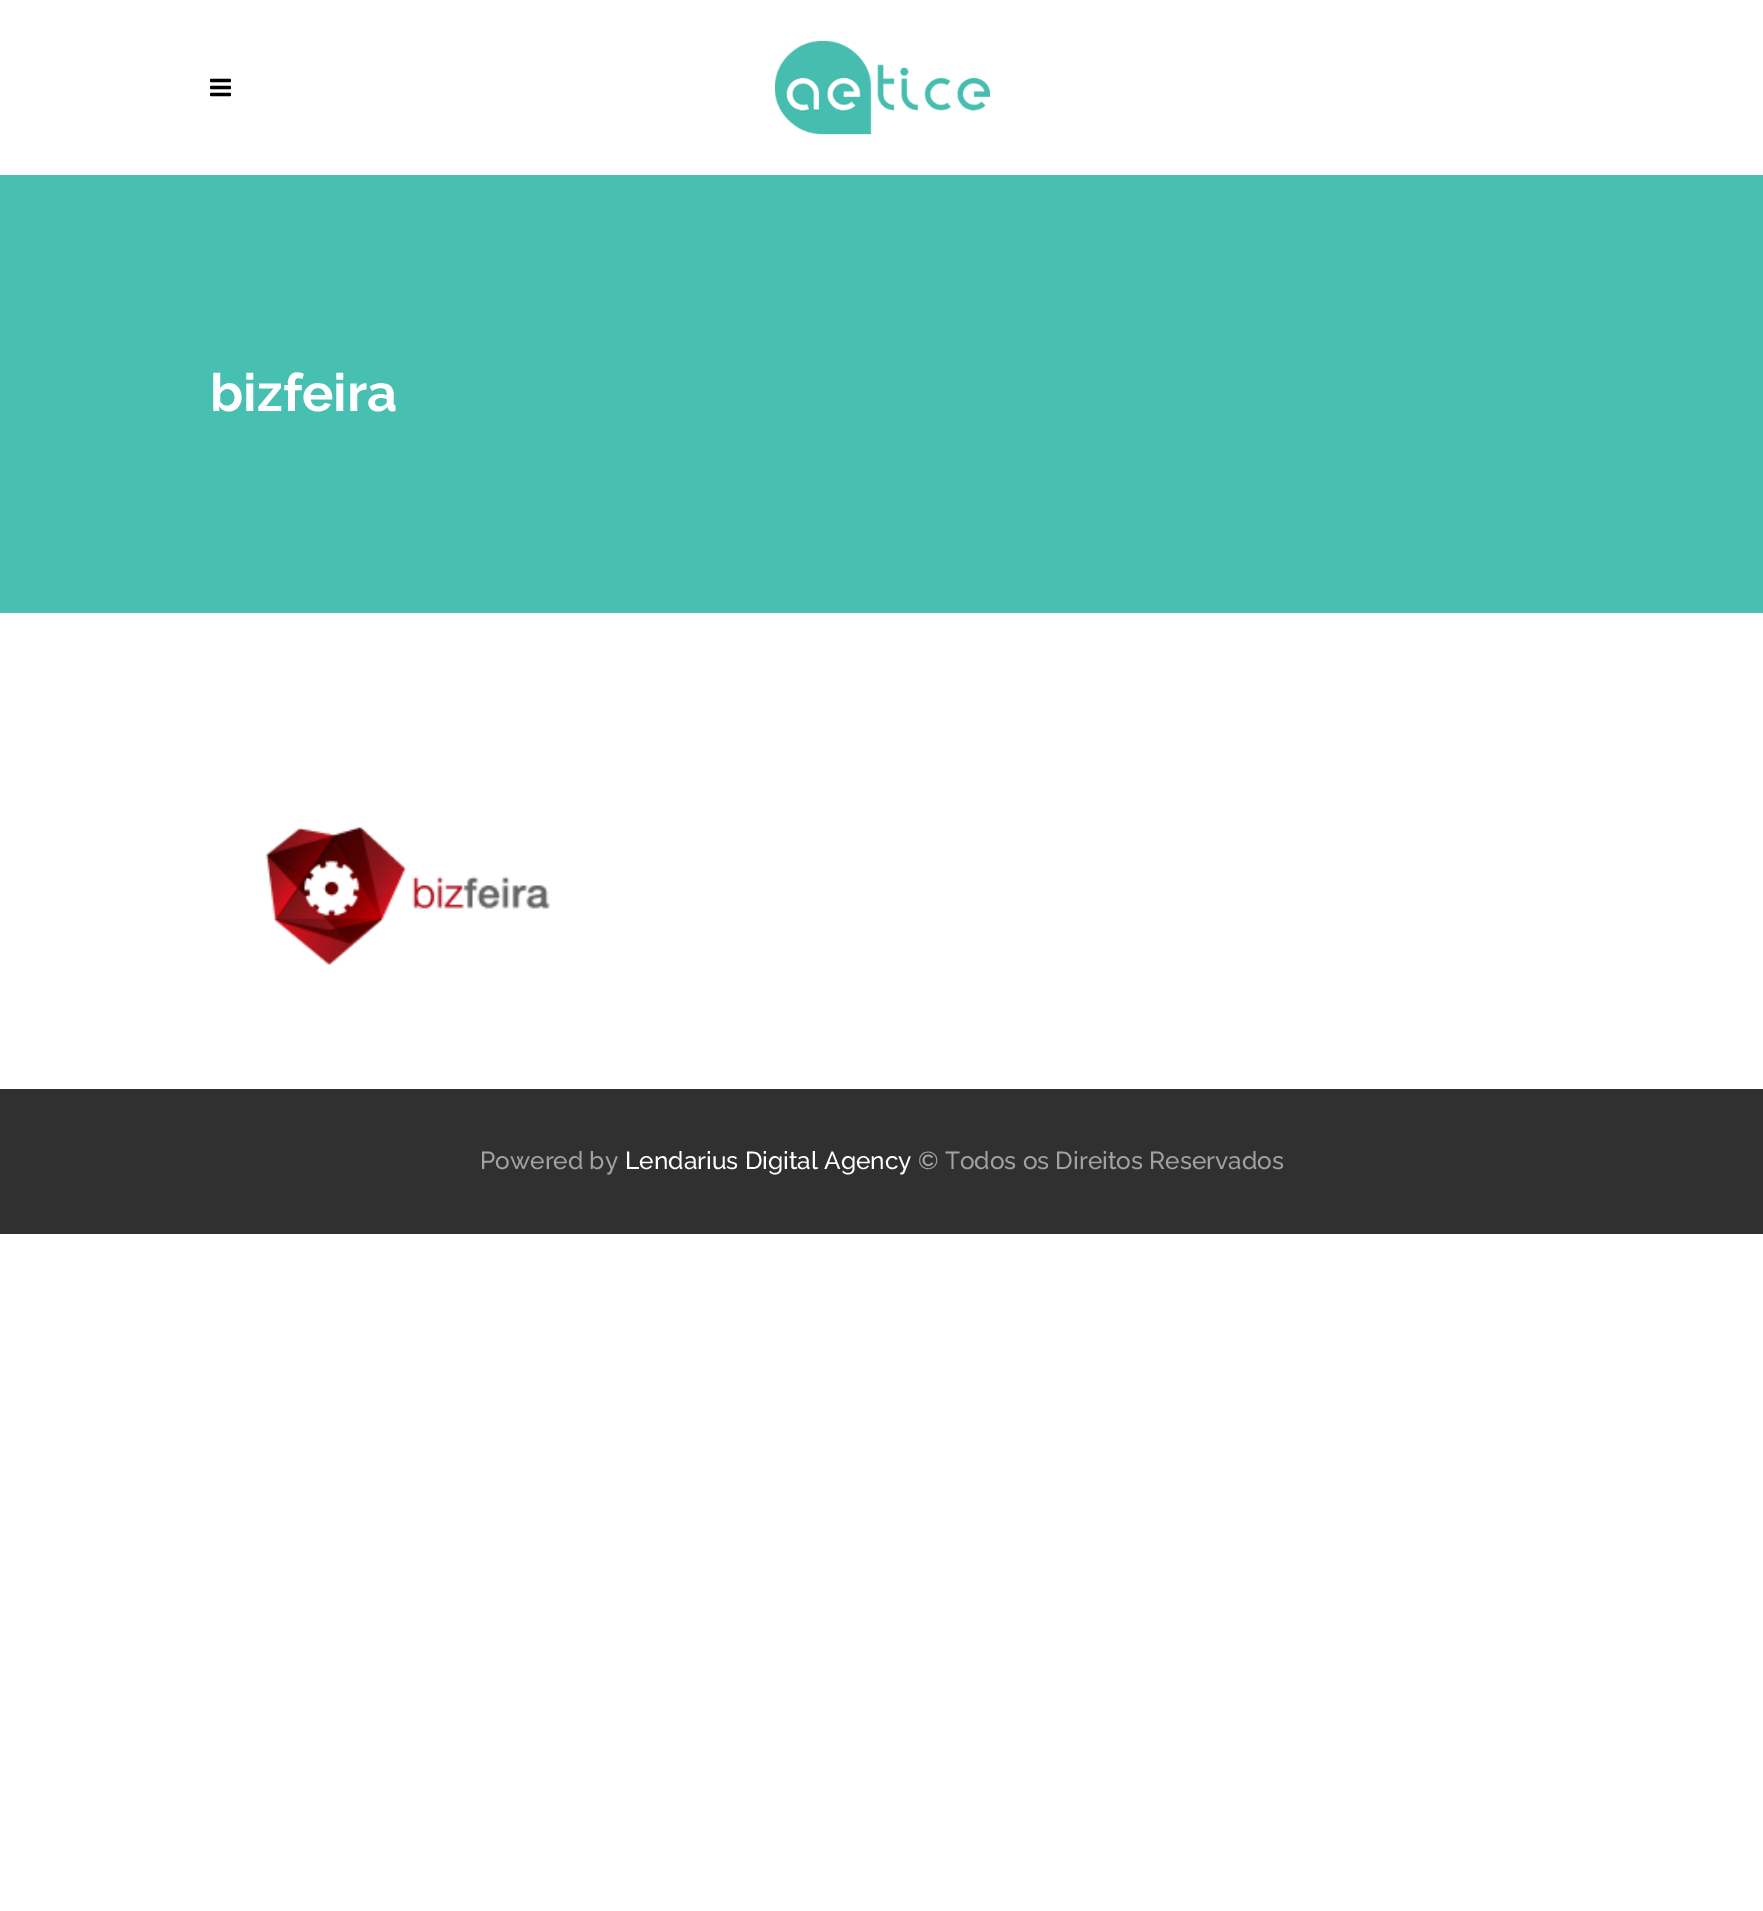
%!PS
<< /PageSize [1763 1911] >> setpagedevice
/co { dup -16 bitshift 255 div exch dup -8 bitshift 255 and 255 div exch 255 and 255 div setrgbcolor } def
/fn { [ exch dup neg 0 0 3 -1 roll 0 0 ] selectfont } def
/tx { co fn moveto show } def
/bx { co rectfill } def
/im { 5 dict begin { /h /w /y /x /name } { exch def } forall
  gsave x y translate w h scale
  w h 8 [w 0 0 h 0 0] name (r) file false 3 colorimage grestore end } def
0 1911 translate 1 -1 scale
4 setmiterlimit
0 0 1763 1911 16#FFFFFF bx
(media/1.raw) 210 78 21 19 im
(media/2.raw) 775 40 216 95 im
0 175 1763 438 16#47BFB1 bx
(media/3.raw) 265 827 285 138 im
0 1089 1763 145 16#303030 bx
(bizfeira) 210 411 /Raleway-Bold 52.5 16#FFFFFF tx
(Powered by) 480 1169 /Raleway-Medium 24.5 16#A2A2A2 tx
(Lendarius Digital Agency) 625 1169 /Raleway-Medium 24.5 16#FFFFFF tx
(© Todos os Direitos Reservados) 918 1169 /Raleway-Medium 24.5 16#A2A2A2 tx
showpage
